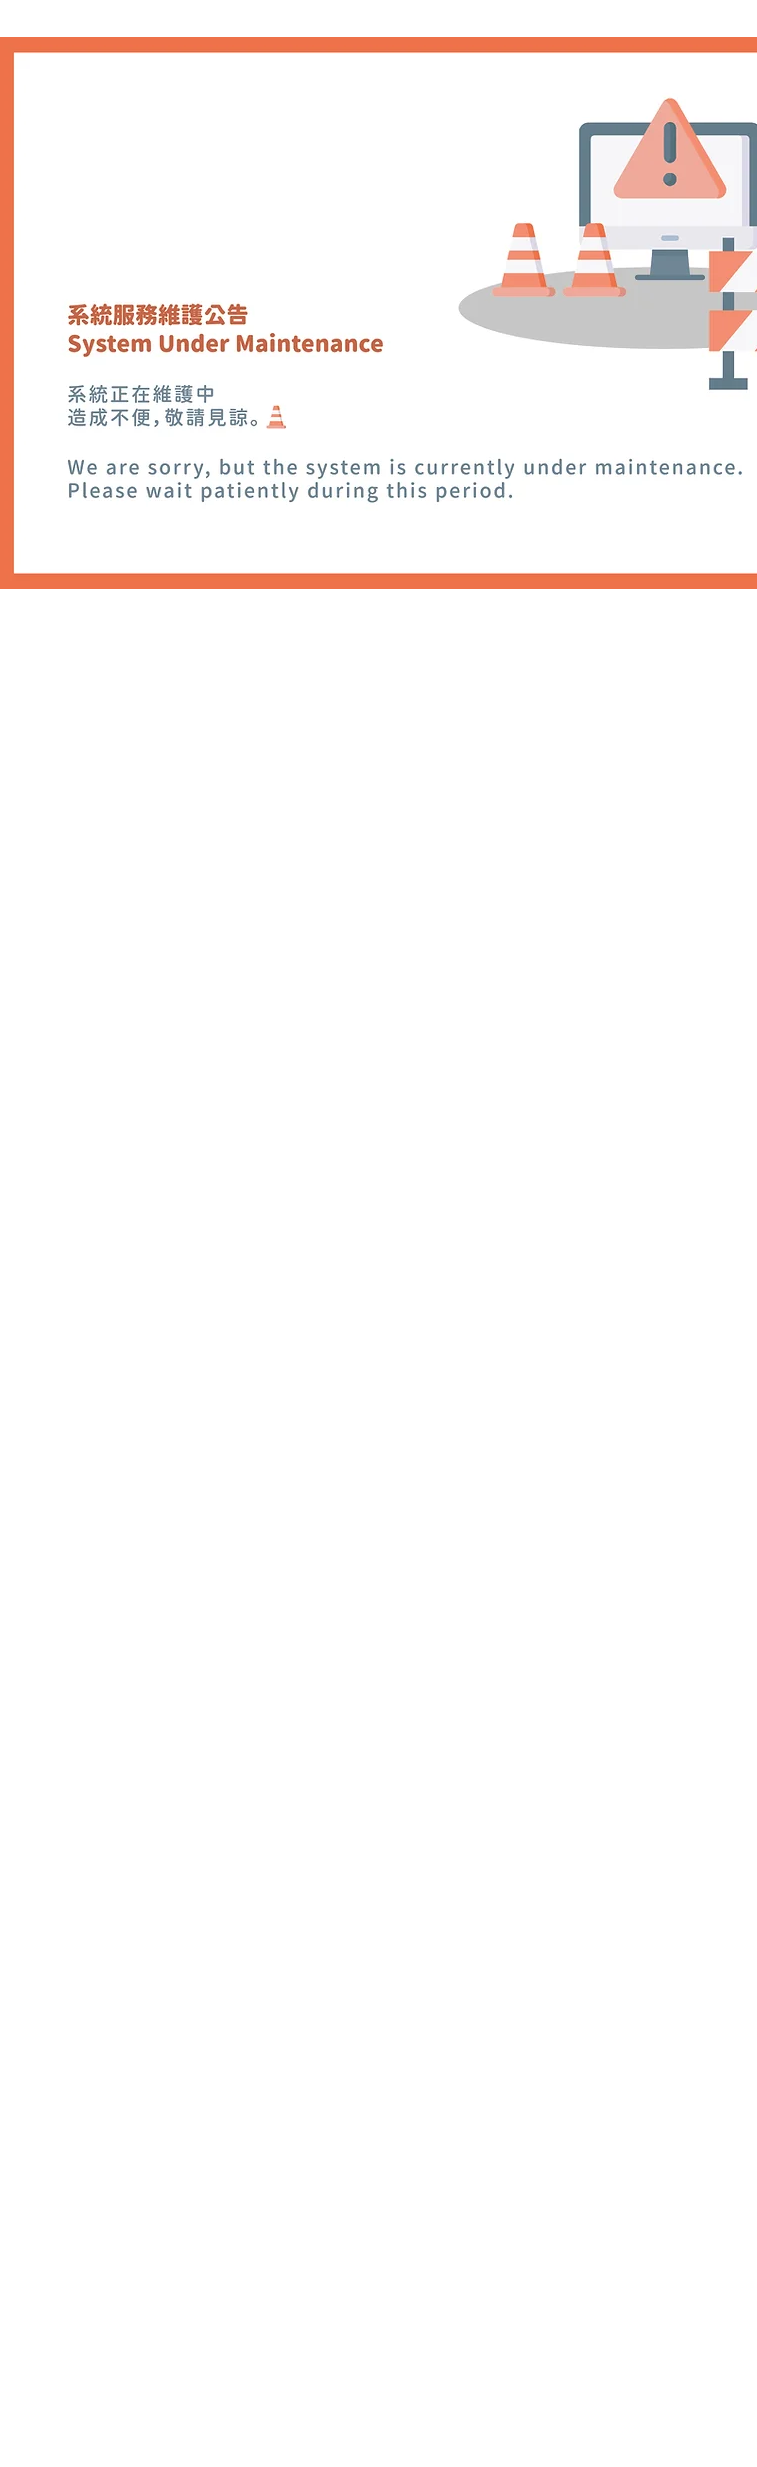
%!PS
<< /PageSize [757 2467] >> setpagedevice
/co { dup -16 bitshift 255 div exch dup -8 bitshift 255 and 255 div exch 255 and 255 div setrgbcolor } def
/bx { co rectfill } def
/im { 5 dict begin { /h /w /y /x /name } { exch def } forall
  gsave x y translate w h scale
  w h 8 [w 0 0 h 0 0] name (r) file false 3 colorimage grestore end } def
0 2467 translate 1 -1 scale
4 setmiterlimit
0 0 757 2467 16#FFFFFF bx
(media/1.raw) 0 37 757 552 im
showpage
